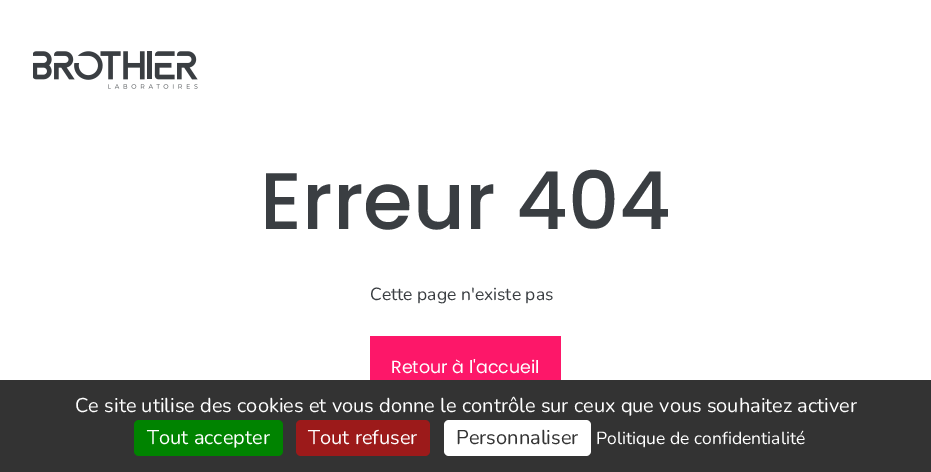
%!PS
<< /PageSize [931 472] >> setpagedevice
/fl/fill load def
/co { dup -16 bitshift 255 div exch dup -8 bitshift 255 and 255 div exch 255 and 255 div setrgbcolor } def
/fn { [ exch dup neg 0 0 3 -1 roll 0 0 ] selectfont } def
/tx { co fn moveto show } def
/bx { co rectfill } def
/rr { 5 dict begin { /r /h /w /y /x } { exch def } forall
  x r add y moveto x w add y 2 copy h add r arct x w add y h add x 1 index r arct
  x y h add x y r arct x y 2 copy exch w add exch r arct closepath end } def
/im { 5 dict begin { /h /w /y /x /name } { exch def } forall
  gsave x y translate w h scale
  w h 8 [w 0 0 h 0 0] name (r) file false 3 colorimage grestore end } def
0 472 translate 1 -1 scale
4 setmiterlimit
0 0 931 472 16#FFFFFF bx
(media/1.raw) 33 51 165 38 im
370 336 191 44 16#FD1769 bx
0 380 931 92 16#333333 bx
16#008300 co
134 420 149 36 5 rr fl
16#9C1A1A co
296 420 134 36 5 rr fl
16#FFFFFF co
444 420 147 36 5 rr fl
(Erreur 404) 260 229 /Poppins-Medium 80 16#3A3E42 tx
(Cette page n'existe pas) 370 300 /Nunito-ExtraLight 17.5 16#3A3E42 tx
(Retour à l'accueil) 391 373 /Poppins-Regular 17.5 16#FFFFFF tx
(Ce site utilise des cookies et vous donne le contrôle sur ceux que vous souhaitez activer) 75 412 /Nunito-ExtraLight 20 16#FFFFFF tx
(Tout accepter) 147 444 /Nunito-ExtraLight 20 16#FFFFFF tx
(Tout refuser) 308 444 /Nunito-ExtraLight 20 16#FFFFFF tx
(Personnaliser) 456 444 /Nunito-ExtraLight 20 16#333333 tx
(Politique de confidentialité) 596 444 /Nunito-ExtraLight 17.5 16#FFFFFF tx
showpage
